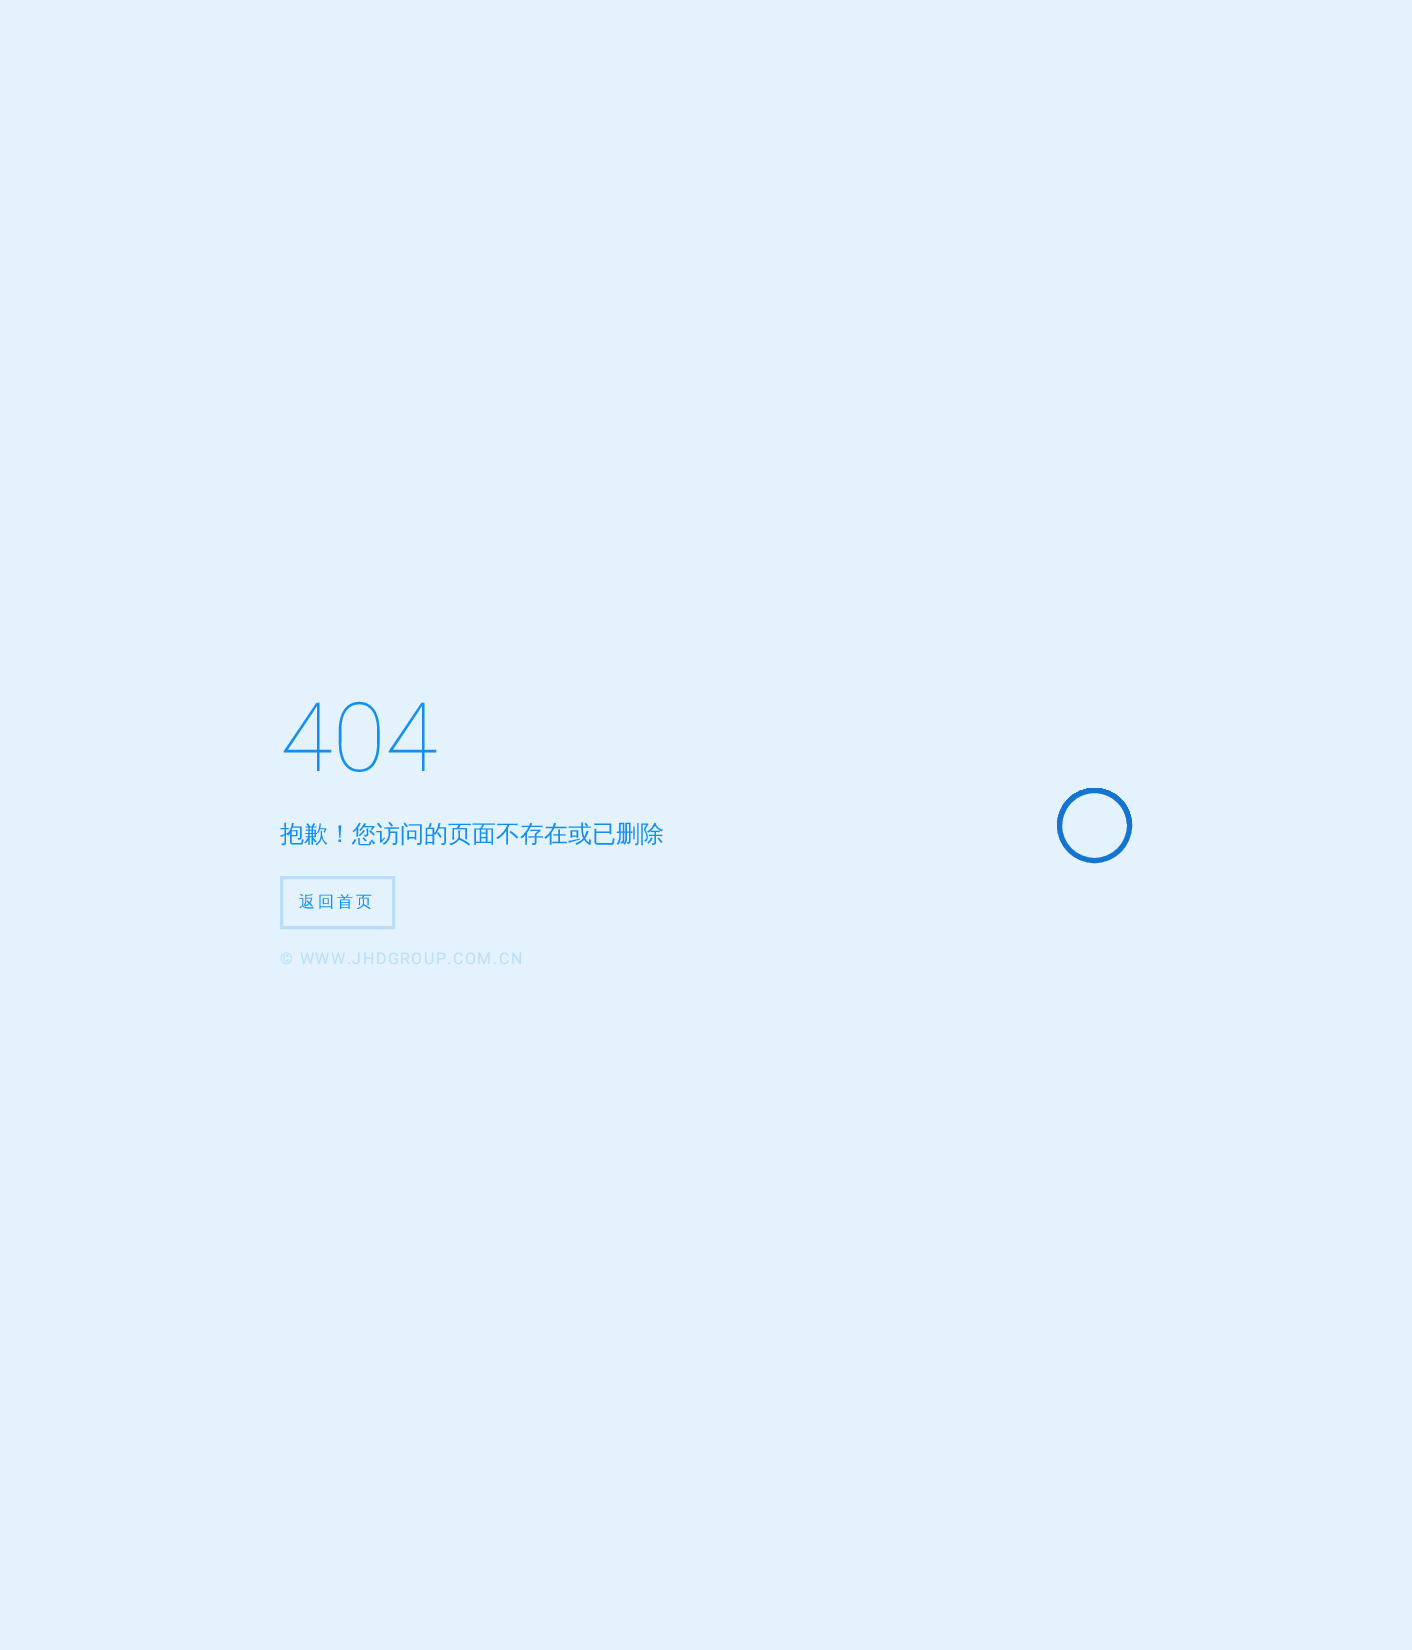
%!PS
<< /PageSize [1412 1650] >> setpagedevice
/mt/moveto load def
/li/lineto load def
/ct/curveto load def
/cp/closepath load def
/st/stroke load def
/gs/gsave load def
/gr/grestore load def
/lw/setlinewidth load def
/co { dup -16 bitshift 255 div exch dup -8 bitshift 255 and 255 div exch 255 and 255 div setrgbcolor } def
/fn { [ exch dup neg 0 0 3 -1 roll 0 0 ] selectfont } def
/tx { co fn moveto show } def
/bx { co rectfill } def
/ci { newpath 0 360 arc closepath } def
0 1650 translate 1 -1 scale
4 setmiterlimit
0 0 1412 1650 16#E3F2FD bx
16#B9DDFB co
3 lw
281.5 877.5 112 50 rectstroke
16#1674D1 co
5 lw
1094.5 825.5 35 ci st
gs
1094.5 788 mt 1115 788 1132 805 1132 825.5 ct 1132 1650 li 1057 1650 li 1057 825.5 li 1057 805 1074 788 1094.5 788 ct cp clip newpath
1059.5 825 mt 1059.5 818 1061.5 811.5 1065.5 805.5 ct 1084.5 777 1129.5 790.5 1129.5 825 ct st
gr
(404) 280 771 /Roboto-Thin 96 16#138FF2 tx
(抱歉！您访问的页面不存在或已删除) 280 842 /WenQuanYiZenHei-Medium 24 16#138FF2 tx
/WenQuanYiZenHei-Medium 16 fn
299 907 mt 3 0 (返回首页) ashow
/Roboto-Regular 16 fn
16#B9DDFB co
280 964 mt 1.5 0 (© WWW.JHDGROUP.COM.CN) ashow
showpage
